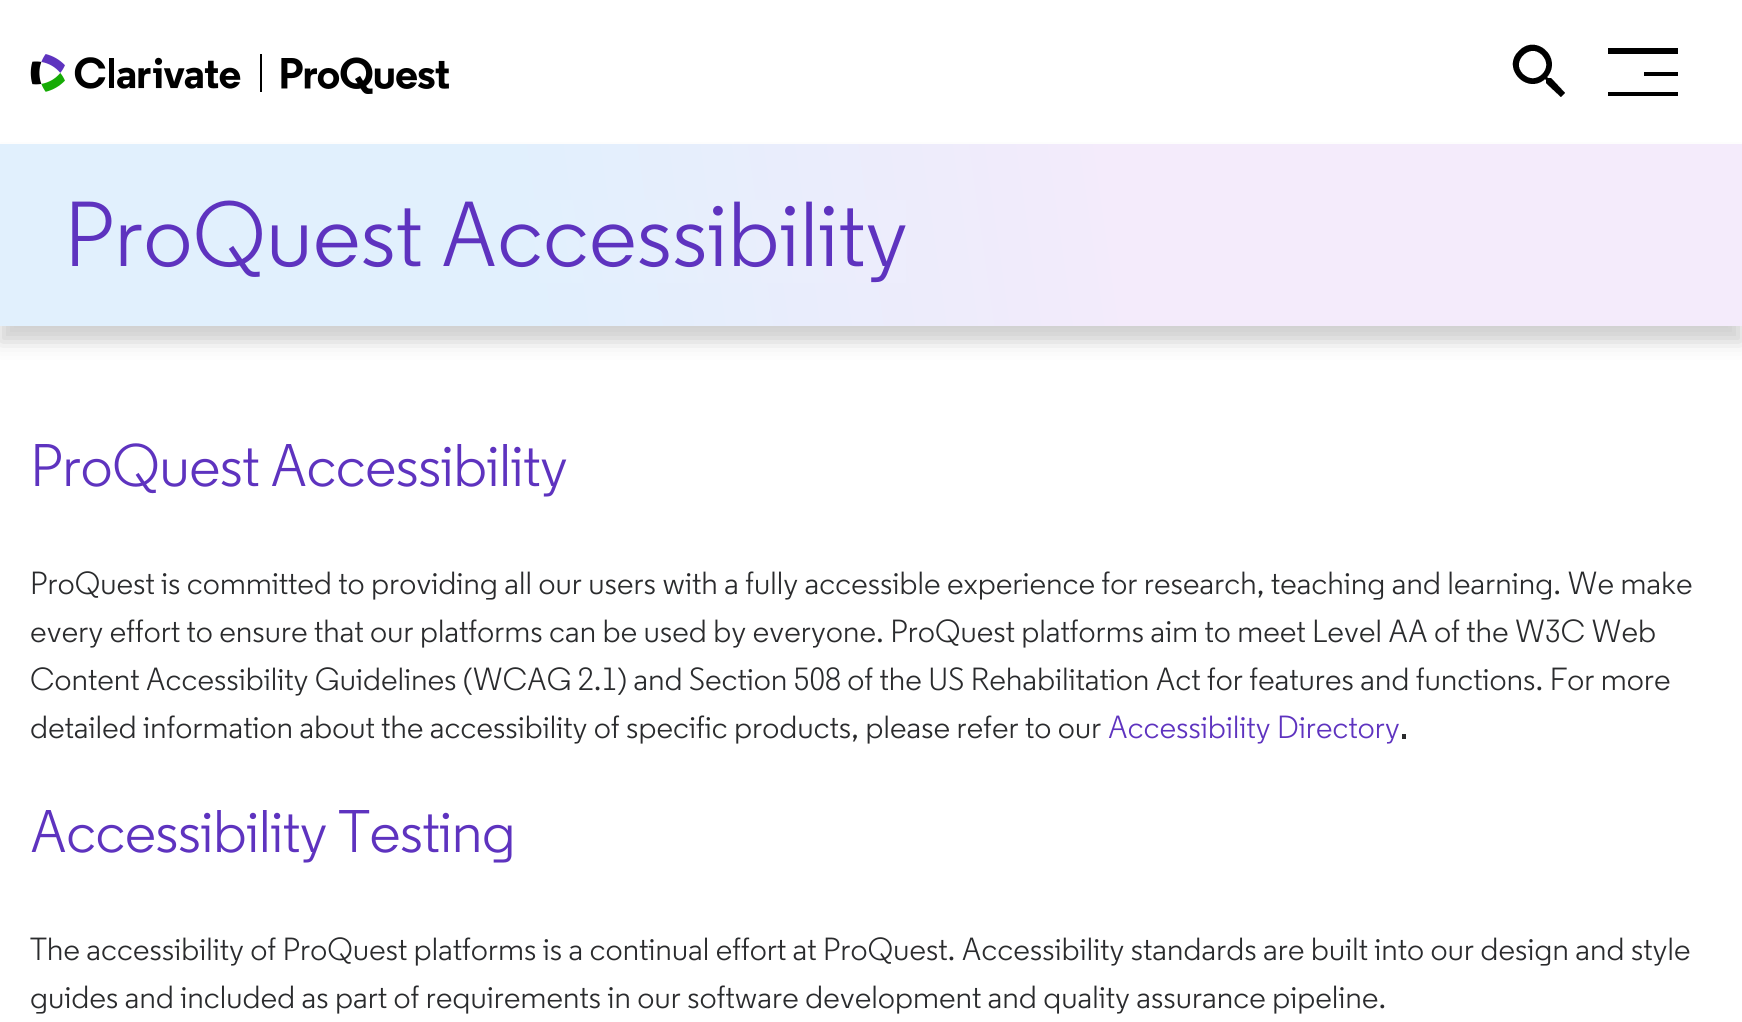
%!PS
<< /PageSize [1742 1022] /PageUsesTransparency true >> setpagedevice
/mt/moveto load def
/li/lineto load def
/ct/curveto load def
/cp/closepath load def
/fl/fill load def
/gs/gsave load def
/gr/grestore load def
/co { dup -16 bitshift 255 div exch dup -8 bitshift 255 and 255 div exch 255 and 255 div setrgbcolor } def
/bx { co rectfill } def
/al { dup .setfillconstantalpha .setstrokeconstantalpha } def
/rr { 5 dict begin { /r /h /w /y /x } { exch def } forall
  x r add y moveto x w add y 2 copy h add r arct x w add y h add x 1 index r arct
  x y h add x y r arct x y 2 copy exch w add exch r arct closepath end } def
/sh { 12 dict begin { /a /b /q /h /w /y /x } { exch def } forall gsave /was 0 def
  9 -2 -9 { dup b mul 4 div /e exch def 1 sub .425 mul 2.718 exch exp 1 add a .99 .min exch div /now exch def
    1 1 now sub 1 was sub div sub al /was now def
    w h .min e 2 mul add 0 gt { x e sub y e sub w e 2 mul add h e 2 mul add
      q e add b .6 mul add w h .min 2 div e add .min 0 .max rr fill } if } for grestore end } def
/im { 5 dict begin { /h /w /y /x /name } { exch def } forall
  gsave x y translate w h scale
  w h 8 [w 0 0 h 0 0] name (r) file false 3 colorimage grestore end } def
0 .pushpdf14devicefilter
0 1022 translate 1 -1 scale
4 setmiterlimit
0 0 1742 1022 16#FFFFFF bx
(media/1.raw) 30 54 419 40 im
16#000000 co
1523 74 mt 1536 87 1555 68 1542 55 ct 1530 42 1510 62 1523 74 ct cp 1551 78 mt 1565 93 li 1561 97 li 1546 83 li 1546 80 li 1545 79 li 1527 95 1501 68 1519 51 ct 1536 33 1563 58 1547 77 ct 1548 78 li cp fl
1608 48 70 6 16#000000 bx
1644 72 34 4 16#000000 bx
1608 92 70 4 16#000000 bx
16#1E1E1E co
0 160 1742 182 0 8 .2 sh
gs 0 144 mt 1742 144 li 1742 326 li 0 326 li cp clip newpath
<< /ShadingType 2 /ColorSpace /DeviceRGB /Coords [4.3 357 1738 113] /Extend [true true] /Function << /FunctionType 3 /Domain [0 1] /Functions [<< /FunctionType 2 /Domain [0 1] /C0 [.882 .941 .992] /C1 [.882 .941 .992] /N 1 >> << /FunctionType 2 /Domain [0 1] /C0 [.882 .941 .992] /C1 [.957 .922 .984] /N 1 >> << /FunctionType 2 /Domain [0 1] /C0 [.957 .922 .984] /C1 [.957 .922 .984] /N 1 >>] /Bounds [.3 .64] /Encode [0 1 0 1 0 1] >> >> shfill gr
(media/2.raw) 72 200 834 83 im
(media/3.raw) 35 443 532 54 im
(media/4.raw) 32 571 1660 29 im
(media/5.raw) 31 619 1624 29 im
(media/6.raw) 31 667 1639 29 im
(media/7.raw) 31 715 1070 29 im
(media/8.raw) 1108 715 291 29 im
1402 734 4 5 16#2A2B2D bx
(media/9.raw) 31 810 481 53 im
(media/10.raw) 30 937 1660 29 im
(media/11.raw) 31 985 1354 29 im
.poppdf14devicefilter showpage
